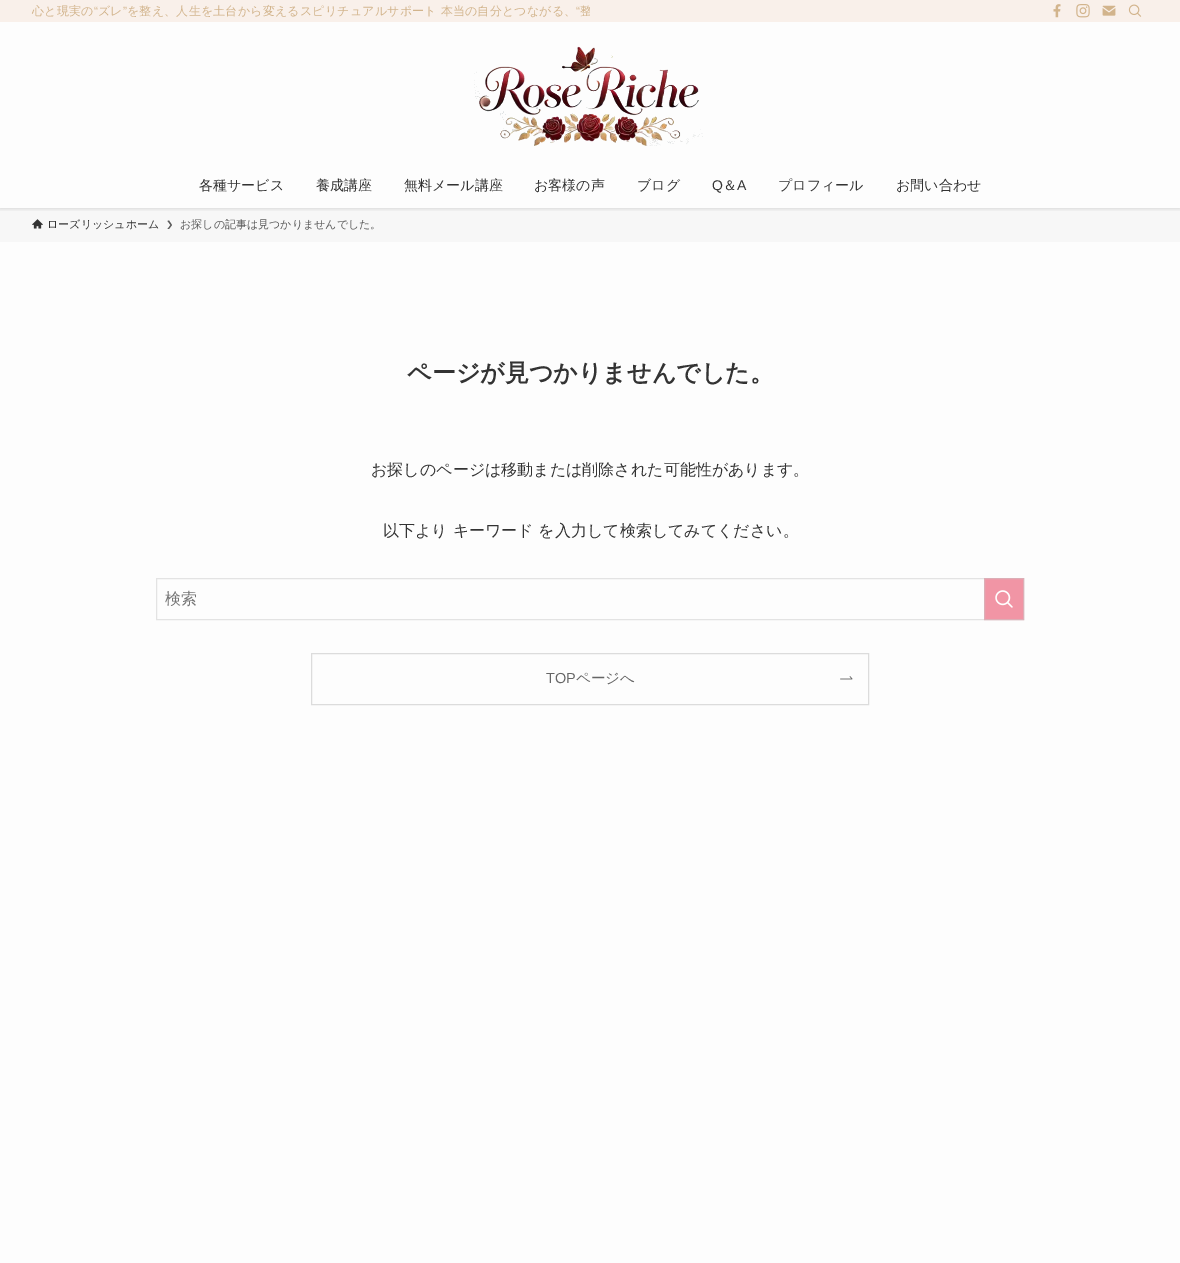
%!PS
<< /PageSize [1180 1263] /PageUsesTransparency true >> setpagedevice
/mt/moveto load def
/li/lineto load def
/cp/closepath load def
/fl/fill load def
/st/stroke load def
/gs/gsave load def
/gr/grestore load def
/co { dup -16 bitshift 255 div exch dup -8 bitshift 255 and 255 div exch 255 and 255 div setrgbcolor } def
/fn { [ exch dup neg 0 0 3 -1 roll 0 0 ] selectfont } def
/tx { co fn moveto show } def
/bx { co rectfill } def
/al { dup .setfillconstantalpha .setstrokeconstantalpha } def
/rr { 5 dict begin { /r /h /w /y /x } { exch def } forall
  x r add y moveto x w add y 2 copy h add r arct x w add y h add x 1 index r arct
  x y h add x y r arct x y 2 copy exch w add exch r arct closepath end } def
/sh { 12 dict begin { /a /b /q /h /w /y /x } { exch def } forall gsave /was 0 def
  9 -2 -9 { dup b mul 4 div /e exch def 1 sub .425 mul 2.718 exch exp 1 add a .99 .min exch div /now exch def
    1 1 now sub 1 was sub div sub al /was now def
    w h .min e 2 mul add 0 gt { x e sub y e sub w e 2 mul add h e 2 mul add
      q e add b .6 mul add w h .min 2 div e add .min 0 .max rr fill } if } for grestore end } def
/im { 5 dict begin { /h /w /y /x /name } { exch def } forall
  gsave x y translate w h scale
  w h 8 [w 0 0 h 0 0] name (r) file false 3 colorimage grestore end } def
0 .pushpdf14devicefilter
0 1263 translate 1 -1 scale
4 setmiterlimit
0 0 1180 1263 16#FDFDFD bx
0 208 1180 34 16#F7F7F7 bx
gs
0 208 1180 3 rectclip
16#000000 co
0 1 1180 208 0 2 .12 sh
gr
0 0 1180 22 16#F9F0EA bx
(media/1.raw) 1053 4 8 14 im
(media/2.raw) 1076 4 14 14 im
(media/3.raw) 1102 5 14 11 im
(media/4.raw) 1128 4 14 13 im
(media/5.raw) 474 46 229 100 im
(media/6.raw) 32 219 11 10 im
16#5A5A5A co
169 220.5 mt 167.5 221 li 170.5 225 li 167.5 229 li 169 229 li 172 225 li cp fl
16#E3E3E3 co
156.5 578.5 867 41 rectstroke
16#F195A5 co
984.5 578.5 mt 1023.5 578.5 li 1023.5 619.5 li 984.5 619.5 li cp gs fl gr
16#DCAEB6 co
st
(media/7.raw) 995 590 18 18 im
16#DCDCDC co
311.5 653.5 557 51 rectstroke
(media/8.raw) 840 676 13 4 im
/WenQuanYiZenHei-Medium 12 fn
16#D2B48C co
32 15 mt .2 0 (心と現実の) ashow
/LiberationSans-Regular 12 fn
94 15 mt .2 0 (“) ashow
/WenQuanYiZenHei-Medium 12 fn
98 15 mt .2 0 (ズレ) ashow
/LiberationSans-Regular 12 fn
123 15 mt .2 0 (”) ashow
/WenQuanYiZenHei-Medium 12 fn
127 15 mt .2 0 (を整え、人生を土台から変えるスピリチュアルサポート 本当の自分とつながる、) ashow
/LiberationSans-Regular 12 fn
576 15 mt .2 0 (“) ashow
gs
32 0 558 22 rectclip
/WenQuanYiZenHei-Medium 12 fn
580 15 mt .2 0 (整) ashow
gr
(各種サービス) 199 190 /WenQuanYiZenHei-Medium 14 16#333333 tx
(養成講座) 316 190 /WenQuanYiZenHei-Medium 14 16#333333 tx
(無料メール講座) 404 190 /WenQuanYiZenHei-Medium 14 16#333333 tx
(お客様の声) 534 190 /WenQuanYiZenHei-Medium 14 16#333333 tx
(ブログ) 637 190 /WenQuanYiZenHei-Medium 14 16#333333 tx
(Q) 712 190 /LiberationSans-Regular 14 16#333333 tx
(＆) 723 190 /WenQuanYiZenHei-Medium 14 16#333333 tx
(A) 737 190 /LiberationSans-Regular 14 16#333333 tx
(プロフィール) 778 190 /WenQuanYiZenHei-Medium 14 16#333333 tx
(お問い合わせ) 896 190 /WenQuanYiZenHei-Medium 14 16#333333 tx
(ローズリッシュホーム) 47 228 /WenQuanYiZenHei-Medium 11 16#333333 tx
(お探しの記事は見つかりませんでした。) 180 228 /WenQuanYiZenHei-Medium 11 16#5A5A5A tx
(ページが見つかりませんでした。) 407 381 /WenQuanYiZenHei-Bold 24 16#333333 tx
(お探しのページは移動または削除された可能性があります。) 371 475 /WenQuanYiZenHei-Medium 16 16#333333 tx
(以下より キーワード を入力して検索してみてください。) 383 536 /WenQuanYiZenHei-Medium 16 16#333333 tx
(検索) 165 604 /WenQuanYiZenHei-Medium 16 16#757575 tx
(TOP) 546 683 /LiberationSans-Regular 14.5 16#666666 tx
(ページへ) 576 683 /WenQuanYiZenHei-Medium 14.5 16#666666 tx
.poppdf14devicefilter showpage
